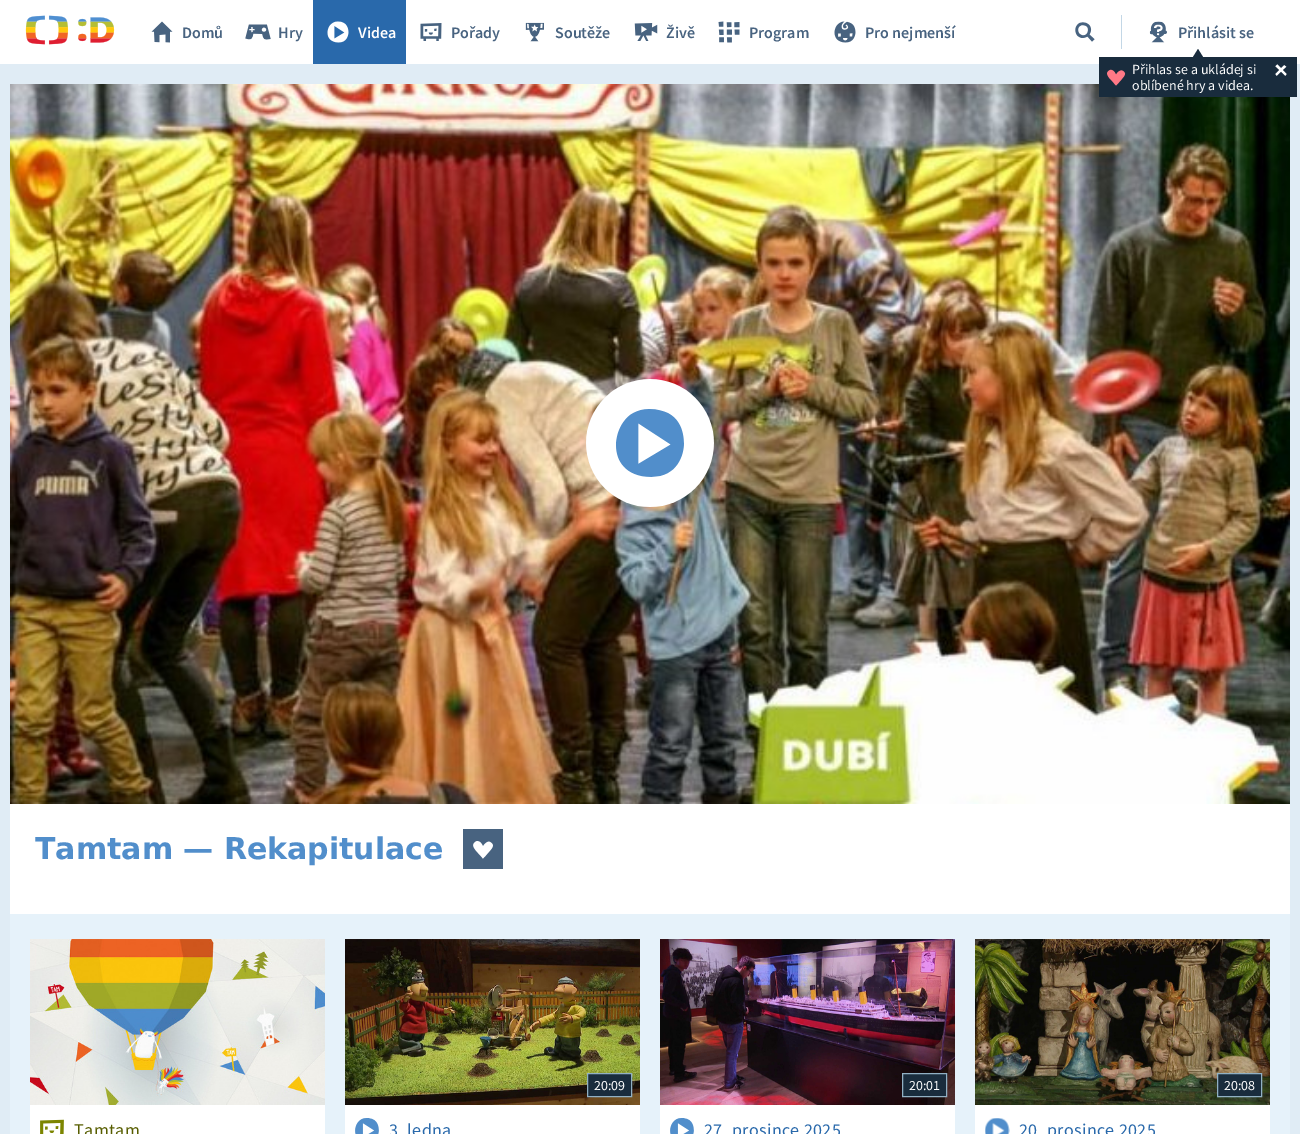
%!PS
<< /PageSize [1300 1134] >> setpagedevice
/mt/moveto load def
/li/lineto load def
/cp/closepath load def
/fl/fill load def
/st/stroke load def
/gs/gsave load def
/gr/grestore load def
/co { dup -16 bitshift 255 div exch dup -8 bitshift 255 and 255 div exch 255 and 255 div setrgbcolor } def
/fn { [ exch dup neg 0 0 3 -1 roll 0 0 ] selectfont } def
/tx { co fn moveto show } def
/bx { co rectfill } def
/im { 5 dict begin { /h /w /y /x /name } { exch def } forall
  gsave x y translate w h scale
  w h 8 [w 0 0 h 0 0] name (r) file false 3 colorimage grestore end } def
0 1134 translate 1 -1 scale
4 setmiterlimit
0 0 1300 1134 16#E0ECF5 bx
0 0 1300 64 16#FFFFFF bx
(media/1.raw) 25 15 90 30 im
(media/2.raw) 151 21 22 22 im
(media/3.raw) 245 24 26 16 im
313 0 93 64 16#2969AB bx
(media/4.raw) 327 21 22 22 im
(media/5.raw) 420 23 22 18 im
(media/6.raw) 525 22 19 20 im
(media/7.raw) 634 23 24 18 im
(media/8.raw) 718 21 22 22 im
(media/9.raw) 834 21 22 22 im
(media/10.raw) 1075 22 20 20 im
1121 15 1 34 16#C3D7E6 bx
(media/11.raw) 1149 21 18 22 im
(media/14.raw) 10 84 1280 720 im
1099 57 198 40 16#192C3D bx
1203 57 mt 1193 57 li 1198 49 li cp fl
(media/12.raw) 1107 69 19 17 im
(media/13.raw) 1275 64 12 12 im
(media/15.raw) 586 379 128 128 im
10 804 1280 110 16#FFFFFF bx
463 829 40 40 16#486380 bx
(media/16.raw) 473 841 20 18 im
10 914 1280 220 16#E6F2FA bx
(media/17.raw) 30 939 295 166 im
30 1105 295 29 16#FFFFFF bx
(media/18.raw) 40 1119 24 15 im
(media/19.raw) 345 939 295 166 im
16#192C3D co
587.5 1073.5 mt 631.5 1073.5 li 631.5 1096.5 li 587.5 1096.5 li cp gs fl gr
16#91B0C4 co
st
345 1105 295 29 16#FFFFFF bx
(media/20.raw) 355 1118 24 16 im
(media/21.raw) 660 939 295 166 im
16#192C3D co
902.5 1073.5 mt 946.5 1073.5 li 946.5 1096.5 li 902.5 1096.5 li cp gs fl gr
16#91B0C4 co
st
660 1105 295 29 16#FFFFFF bx
(media/20.raw) 670 1118 24 16 im
(media/22.raw) 975 939 295 166 im
16#192C3D co
1217.5 1073.5 mt 1261.5 1073.5 li 1261.5 1096.5 li 1217.5 1096.5 li cp gs fl gr
16#91B0C4 co
st
975 1105 295 29 16#FFFFFF bx
(media/23.raw) 985 1118 25 16 im
(Domů) 182 38 /SourceSansPro-SemiBold 16 16#486380 tx
(Hry) 278 38 /SourceSansPro-SemiBold 16 16#486380 tx
(Videa) 358 38 /SourceSansPro-SemiBold 16 16#FFFFFF tx
(Pořady) 451 38 /SourceSansPro-SemiBold 16 16#486380 tx
(Soutěže) 555 38 /SourceSansPro-SemiBold 16 16#486380 tx
(Živě) 666 38 /SourceSansPro-SemiBold 16 16#486380 tx
(Program) 749 38 /SourceSansPro-SemiBold 16 16#486380 tx
(Pro nejmenší) 865 38 /SourceSansPro-SemiBold 16 16#486380 tx
(Přihlásit se) 1178 38 /SourceSansPro-SemiBold 16 16#486380 tx
(Přihlas se a ukládej si) 1132 74 /SourceSansPro-Regular 14 16#FFFFFF tx
(oblíbené hry a videa.) 1132 90 /SourceSansPro-Regular 14 16#FFFFFF tx
(Tamtam — Rekapitulace) 35 859 /DejaVuSans-Bold 30 16#518ECB tx
(o) 497 946 /SourceSansPro-Regular 14 16#49413D tx
/SourceSansPro-Regular 18 fn
16#575D00 co
74 1136 mt .4 0 (Tamtam) ashow
(20:09) 594 1090 /SourceSansPro-Regular 14 16#FFFFFF tx
/SourceSansPro-Regular 18 fn
16#2969AB co
389 1136 mt .4 0 (3. ledna) ashow
(20:01) 909 1090 /SourceSansPro-Regular 14 16#FFFFFF tx
/SourceSansPro-Regular 18 fn
16#2969AB co
704 1136 mt .4 0 (27. prosince 2025) ashow
(20:08) 1224 1090 /SourceSansPro-Regular 14 16#FFFFFF tx
/SourceSansPro-Regular 18 fn
16#2969AB co
1019 1136 mt .4 0 (20. prosince 2025) ashow
showpage
